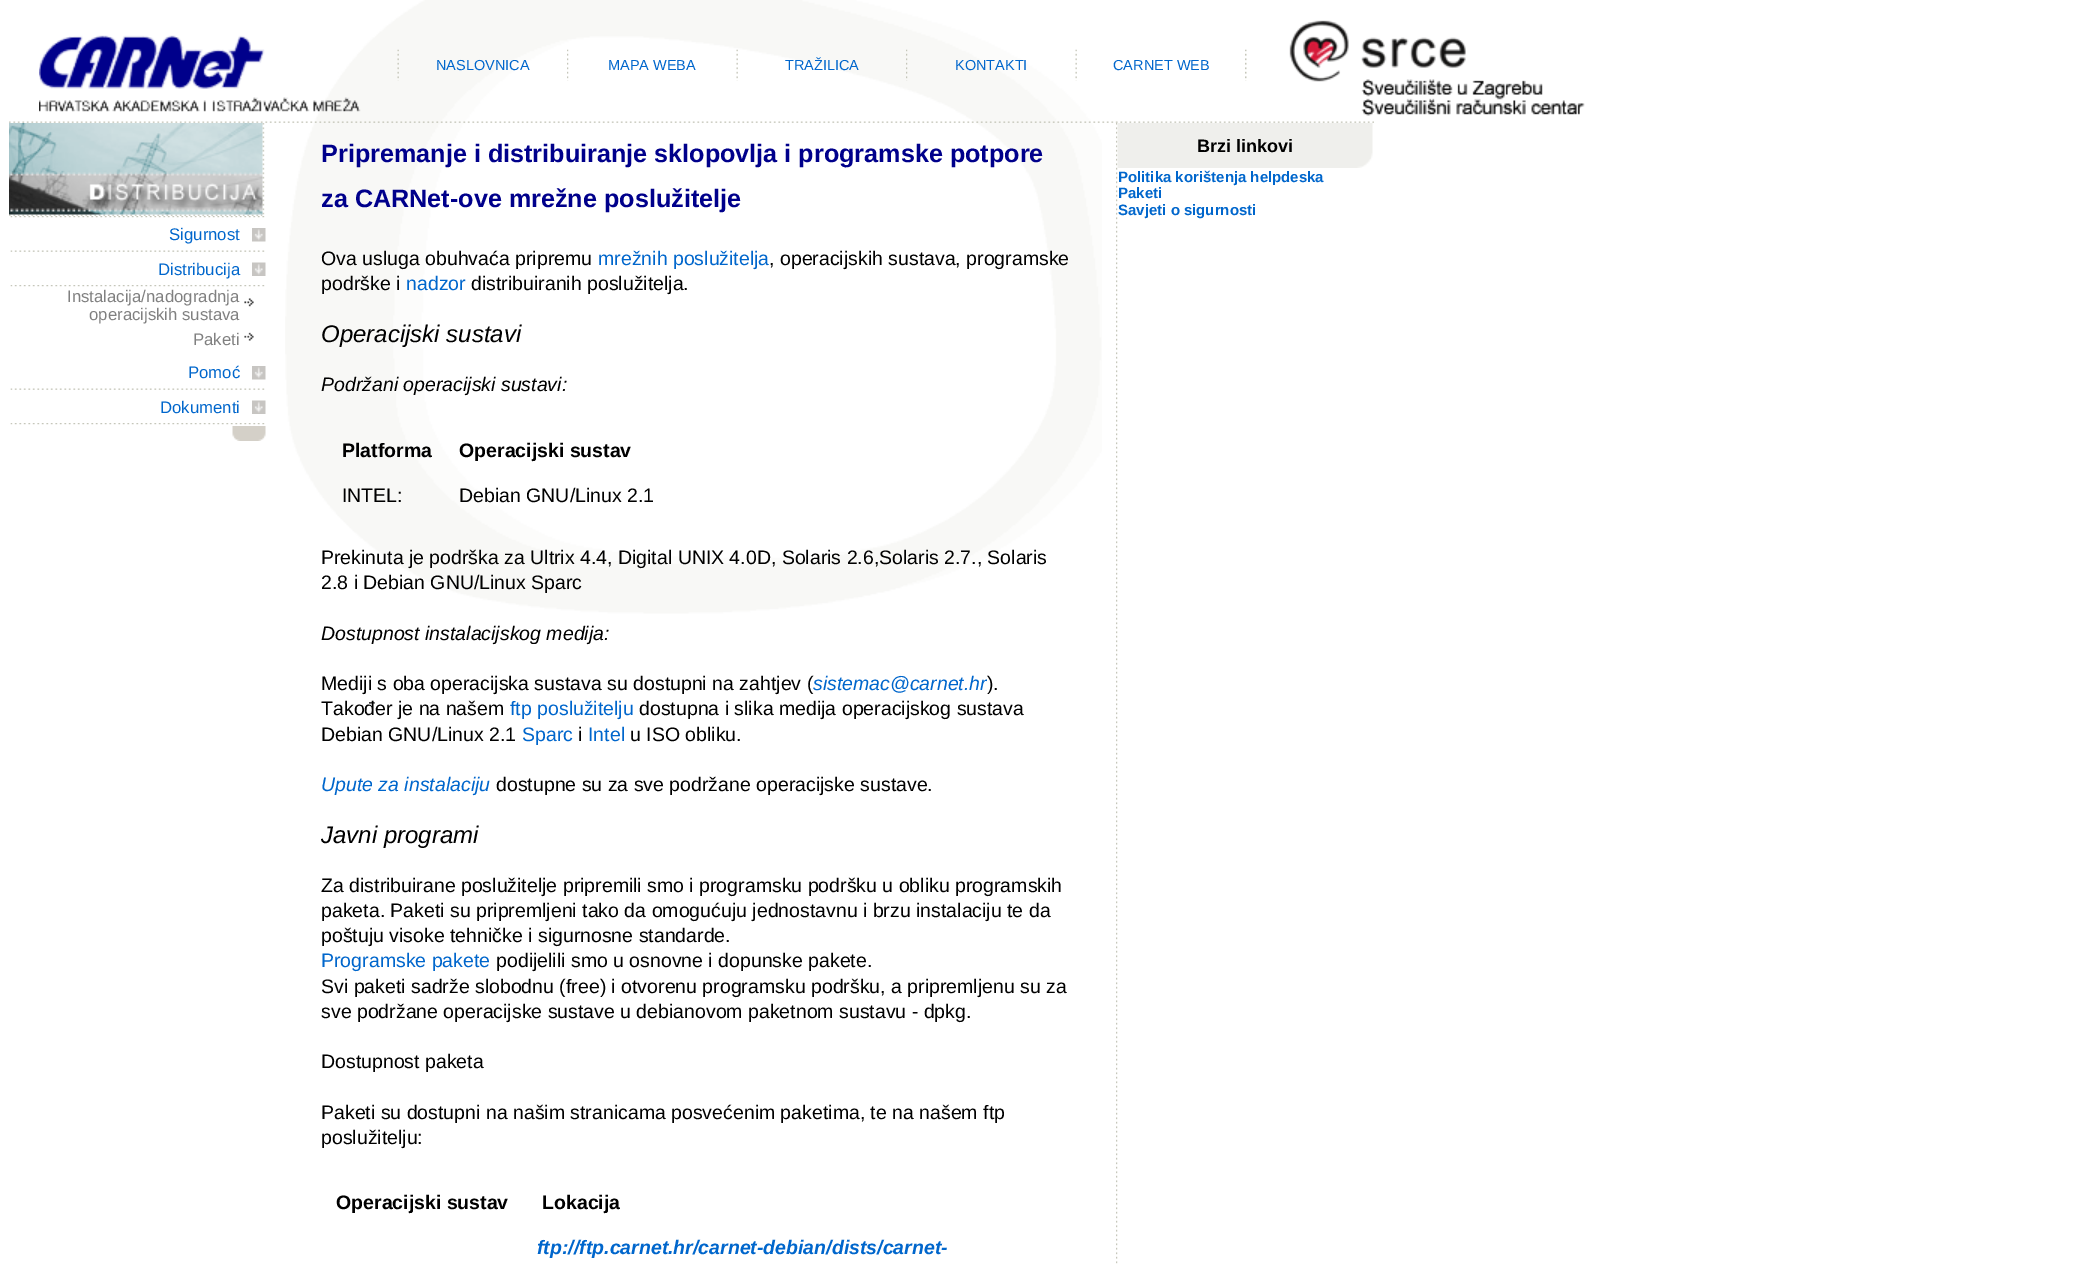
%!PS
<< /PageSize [2089 1265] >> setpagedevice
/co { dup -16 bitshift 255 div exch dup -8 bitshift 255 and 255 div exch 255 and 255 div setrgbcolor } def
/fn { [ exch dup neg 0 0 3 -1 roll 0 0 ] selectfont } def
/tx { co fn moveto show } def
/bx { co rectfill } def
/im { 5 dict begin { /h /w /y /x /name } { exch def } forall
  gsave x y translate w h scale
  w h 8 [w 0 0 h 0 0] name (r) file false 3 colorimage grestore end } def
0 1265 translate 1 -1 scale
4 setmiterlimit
0 0 2089 1265 16#FFFFFF bx
(media/1.raw) 285 0 817 614 im
(media/2.raw) 39 35 226 54 im
(media/3.raw) 397 49 2 32 im
(media/4.raw) 567 49 2 32 im
(media/5.raw) 736 49 2 32 im
(media/6.raw) 906 49 2 32 im
(media/7.raw) 1075 49 2 32 im
(media/8.raw) 1245 49 2 32 im
(media/9.raw) 1289 20 296 96 im
(media/10.raw) 39 97 322 15 im
(media/11.raw) 9 121 1365 2 im
(media/13.raw) 262 123 3 92 im
(media/14.raw) 9 214 254 2 im
(media/12.raw) 9 123 254 92 im
(media/15.raw) 10 216 230 2 im
(media/16.raw) 240 216 25 2 im
(media/17.raw) 252 228 14 14 im
(media/18.raw) 10 250 230 2 im
(media/19.raw) 240 250 25 2 im
(media/20.raw) 252 262 14 14 im
(media/15.raw) 10 285 230 2 im
(media/16.raw) 240 285 25 2 im
(media/21.raw) 244 298 10 9 im
(media/22.raw) 244 332 10 9 im
(media/17.raw) 252 366 14 14 im
(media/23.raw) 10 388 230 2 im
(media/24.raw) 240 388 25 2 im
(media/20.raw) 252 400 14 14 im
(media/15.raw) 10 423 230 2 im
(media/16.raw) 240 423 25 2 im
(media/25.raw) 232 426 34 15 im
(media/26.raw) 1116 123 2 1141 im
(media/27.raw) 1117 123 256 45 im
(NASLOVNICA) 436 70 /LiberationSans-Regular 14.5 16#0066CC tx
(MAPA WEBA) 608 70 /LiberationSans-Regular 14.5 16#0066CC tx
(TRAŽILICA) 785 70 /LiberationSans-Regular 14.5 16#0066CC tx
(KONTAKTI) 955 70 /LiberationSans-Regular 14.5 16#0066CC tx
(CARNET WEB) 1113 70 /LiberationSans-Regular 14.5 16#0066CC tx
(Sigurnost) 169 240 /LiberationSans-Regular 16.75 16#0066CC tx
(Distribucija) 158 275 /LiberationSans-Regular 16.75 16#0066CC tx
(Instalacija/nadogradnja) 67 302 /LiberationSans-Regular 16.75 16#808080 tx
(operacijskih sustava) 89 320 /LiberationSans-Regular 16.75 16#808080 tx
(Paketi) 193 345 /LiberationSans-Regular 16.75 16#808080 tx
(Pomoć) 188 378 /LiberationSans-Regular 16.75 16#0066CC tx
(Dokumenti) 160 413 /LiberationSans-Regular 16.75 16#0066CC tx
(Pripremanje i distribuiranje sklopovlja i programske potpore) 321 162 /LiberationSans-Bold 25.2 16#00008B tx
(za CARNet-ove mrežne poslužitelje) 321 207 /LiberationSans-Bold 25.2 16#00008B tx
(Ova usluga obuhvaća pripremu) 321 265 /LiberationSans-Regular 19.5 16#000000 tx
(mrežnih poslužitelja) 598 265 /LiberationSans-Regular 19.5 16#0066CC tx
(, operacijskih sustava, programske) 769 265 /LiberationSans-Regular 19.5 16#000000 tx
(podrške i) 321 290 /LiberationSans-Regular 19.5 16#000000 tx
(nadzor) 406 290 /LiberationSans-Regular 19.5 16#0066CC tx
(distribuiranih poslužitelja.) 471 290 /LiberationSans-Regular 19.5 16#000000 tx
(Operacijski sustavi) 321 342 /LiberationSans-Italic 24 16#000000 tx
(Podržani operacijski sustavi:) 321 391 /LiberationSans-Italic 19.5 16#000000 tx
(Platforma) 342 457 /LiberationSans-Bold 19.5 16#000000 tx
(Operacijski sustav) 459 457 /LiberationSans-Bold 19.5 16#000000 tx
(INTEL:) 342 502 /LiberationSans-Regular 19.5 16#000000 tx
(Debian GNU/Linux 2.1) 459 502 /LiberationSans-Regular 19.5 16#000000 tx
(Prekinuta je podrška za Ultrix 4.4, Digital UNIX 4.0D, Solaris 2.6,Solaris 2.7., Solaris) 321 564 /LiberationSans-Regular 19.5 16#000000 tx
(2.8 i Debian GNU/Linux Sparc) 321 589 /LiberationSans-Regular 19.5 16#000000 tx
(Dostupnost instalacijskog medija:) 321 640 /LiberationSans-Italic 19.5 16#000000 tx
(Mediji s oba operacijska sustava su dostupni na zahtjev \() 321 690 /LiberationSans-Regular 19.5 16#000000 tx
(sistemac@carnet.hr) 813 690 /LiberationSans-Italic 19.5 16#0066CC tx
(\).) 987 690 /LiberationSans-Regular 19.5 16#000000 tx
(Također je na našem) 321 715 /LiberationSans-Regular 19.5 16#000000 tx
(ftp poslužitelju) 510 715 /LiberationSans-Regular 19.5 16#0066CC tx
(dostupna i slika medija operacijskog sustava) 639 715 /LiberationSans-Regular 19.5 16#000000 tx
(Debian GNU/Linux 2.1) 321 741 /LiberationSans-Regular 19.5 16#000000 tx
(Sparc) 522 741 /LiberationSans-Regular 19.5 16#0066CC tx
(i) 578 741 /LiberationSans-Regular 19.5 16#000000 tx
(Intel) 588 741 /LiberationSans-Regular 19.5 16#0066CC tx
(u ISO obliku.) 630 741 /LiberationSans-Regular 19.5 16#000000 tx
(Upute za instalaciju) 321 791 /LiberationSans-Italic 19.5 16#0066CC tx
(dostupne su za sve podržane operacijske sustave.) 496 791 /LiberationSans-Regular 19.5 16#000000 tx
(Javni programi) 321 843 /LiberationSans-Italic 24 16#000000 tx
(Za distribuirane poslužitelje pripremili smo i programsku podršku u obliku programskih) 321 892 /LiberationSans-Regular 19.5 16#000000 tx
(paketa. Paketi su pripremljeni tako da omogućuju jednostavnu i brzu instalaciju te da) 321 917 /LiberationSans-Regular 19.5 16#000000 tx
(poštuju visoke tehničke i sigurnosne standarde.) 321 942 /LiberationSans-Regular 19.5 16#000000 tx
(Programske pakete) 321 967 /LiberationSans-Regular 19.5 16#0066CC tx
(podijelili smo u osnovne i dopunske pakete.) 496 967 /LiberationSans-Regular 19.5 16#000000 tx
(Svi paketi sadrže slobodnu \(free\) i otvorenu programsku podršku, a pripremljenu su za) 321 993 /LiberationSans-Regular 19.5 16#000000 tx
(sve podržane operacijske sustave u debianovom paketnom sustavu - dpkg.) 321 1018 /LiberationSans-Regular 19.5 16#000000 tx
(Dostupnost paketa) 321 1068 /LiberationSans-Regular 19.5 16#000000 tx
(Paketi su dostupni na našim stranicama posvećenim paketima, te na našem ftp) 321 1119 /LiberationSans-Regular 19.5 16#000000 tx
(poslužitelju:) 321 1144 /LiberationSans-Regular 19.5 16#000000 tx
(Operacijski sustav) 336 1209 /LiberationSans-Bold 19.5 16#000000 tx
(Lokacija) 542 1209 /LiberationSans-Bold 19.5 16#000000 tx
(ftp://ftp.carnet.hr/carnet-debian/dists/carnet-) 537 1254 /LiberationSans-BoldItalic 19.5 16#0066CC tx
(Brzi linkovi) 1197 152 /LiberationSans-Bold 18 16#000000 tx
(Politika korištenja helpdeska) 1118 182 /LiberationSans-Bold 15 16#0066CC tx
(Paketi) 1118 198 /LiberationSans-Bold 15 16#0066CC tx
(Savjeti o sigurnosti) 1118 215 /LiberationSans-Bold 15 16#0066CC tx
showpage
